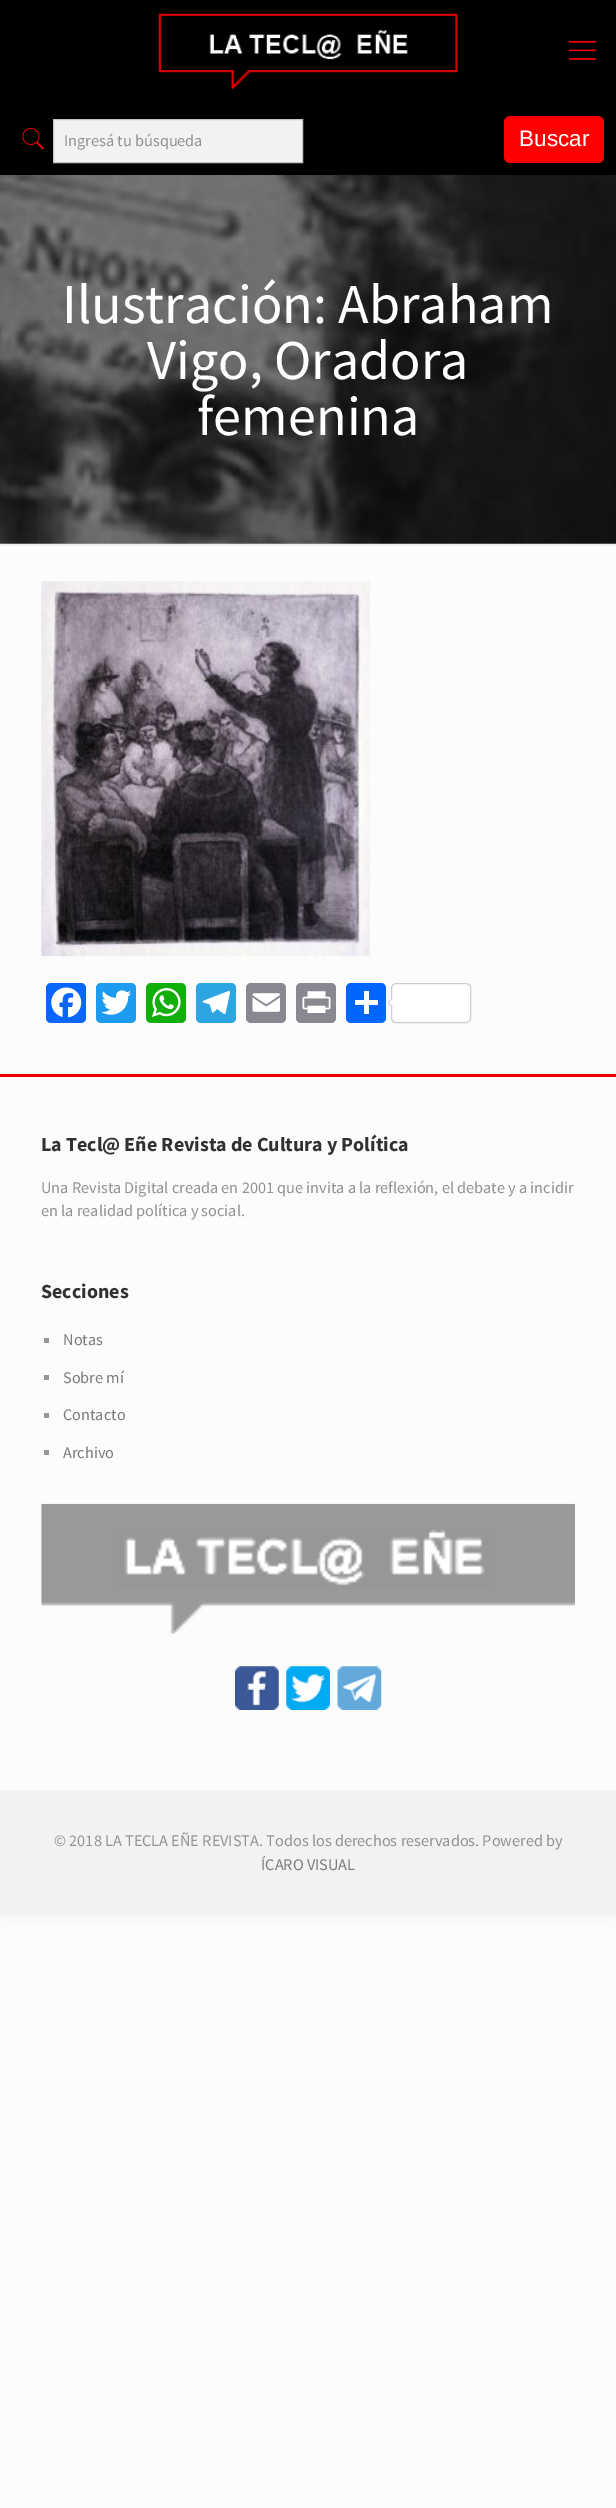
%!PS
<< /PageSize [616 2508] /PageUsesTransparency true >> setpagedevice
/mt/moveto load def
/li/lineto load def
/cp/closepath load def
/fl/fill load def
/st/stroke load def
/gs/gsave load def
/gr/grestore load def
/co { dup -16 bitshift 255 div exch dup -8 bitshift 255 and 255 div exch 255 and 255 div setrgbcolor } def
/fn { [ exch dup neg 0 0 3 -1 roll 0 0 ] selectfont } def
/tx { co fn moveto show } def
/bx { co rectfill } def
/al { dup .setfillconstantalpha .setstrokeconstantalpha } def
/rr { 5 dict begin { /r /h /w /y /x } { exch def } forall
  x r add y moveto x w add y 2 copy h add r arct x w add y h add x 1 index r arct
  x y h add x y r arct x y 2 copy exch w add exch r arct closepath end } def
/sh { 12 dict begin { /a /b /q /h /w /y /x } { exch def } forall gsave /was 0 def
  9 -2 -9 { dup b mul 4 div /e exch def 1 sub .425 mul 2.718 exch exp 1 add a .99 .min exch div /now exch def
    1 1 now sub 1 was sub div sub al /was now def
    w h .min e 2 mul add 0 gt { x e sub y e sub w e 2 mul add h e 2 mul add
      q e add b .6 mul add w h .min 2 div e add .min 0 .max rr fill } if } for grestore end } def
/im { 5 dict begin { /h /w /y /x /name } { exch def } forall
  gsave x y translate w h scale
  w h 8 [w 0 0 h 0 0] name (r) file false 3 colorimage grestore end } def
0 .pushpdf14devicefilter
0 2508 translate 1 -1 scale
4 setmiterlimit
0 0 616 2508 16#FCFCFC bx
16#000000 co
0 0 616 1914 0 9.5 .06 sh
0 543 616 1247 16#FCFCFC bx
(media/1.raw) 0 175 616 369 im
0 0 616 175 16#000000 bx
(media/2.raw) 158 13 300 76 im
(media/3.raw) 568 40 29 20 im
(media/4.raw) 22 127 22 23 im
16#F2F2F2 co
53.5 119.5 mt 302.5 119.5 li 302.5 162.5 li 53.5 162.5 li cp gs fl gr
16#C4C4C4 co
st
16#FF0000 co
504 116 100 47 6 rr fl
(media/5.raw) 505 116 97 4 im
0.03 al
16#000000 co
504.5 116.5 99 46 rectstroke
1 al
(media/6.raw) 0 544 616 2 im
(media/7.raw) 41 581 329 376 im
16#0866FF co
46 983 40 40 5 rr fl
(media/8.raw) 51 987 31 31 im
16#1D9BF0 co
96 983 40 40 5 rr fl
(media/9.raw) 101 990 31 25 im
16#12AF0A co
146 983 40 40 5 rr fl
(media/10.raw) 152 988 29 29 im
16#2CA5E0 co
196 983 40 40 5 rr fl
(media/11.raw) 202 991 28 23 im
16#888990 co
246 983 40 40 5 rr fl
(media/12.raw) 252 993 28 19 im
296 983 40 40 5 rr fl
(media/13.raw) 302 991 29 22 im
16#0166FF co
346 983 40 40 5 rr fl
364 991 5 23 16#FFFFFF bx
355 1000 23 5 16#FFFFFF bx
391.5 983.5 79 39 4.5 rr gs fl gr
16#CCCCCC co
st
392.5 997.5 mt 392.5 1007.5 li 387.5 1002.5 li cp fl
16#FFFFFF co
394 997.5 mt 394 1007.5 li 389 1002.5 li cp fl
0 1074 616 3 16#F00002 bx
44 1338 5 5 16#979797 bx
44 1375 5 5 16#979797 bx
44 1413 5 5 16#979797 bx
44 1450 5 5 16#979797 bx
(media/14.raw) 41 1503 534 131 im
(media/15.raw) 235 1666 44 44 im
(media/16.raw) 286 1666 44 44 im
(media/17.raw) 337 1666 45 44 im
0 1790 616 124 16#F2F2F2 bx
(Ingresá tu búsqueda) 64 146 /SourceSansPro-Regular 16.25 16#929292 tx
(Buscar) 519 146 /LiberationSans-Regular 22.5 16#FFFFFF tx
(Ilustración: Abraham) 62 323 /SourceSansPro-Regular 56.25 16#FFFFFF tx
(Vigo, Oradora) 147 379 /SourceSansPro-Regular 56.25 16#FFFFFF tx
(femenina) 197 435 /SourceSansPro-Regular 56.25 16#FFFFFF tx
(La Tecl@ Eñe Revista de Cultura y Política) 41 1151 /SourceSansPro-Bold 20 16#313131 tx
(Una Revista Digital creada en 2001 que invita a la reflexión, el debate y a incidir) 41 1193 /SourceSansPro-Regular 16.25 16#929292 tx
(en la realidad política y social.) 41 1216 /SourceSansPro-Regular 16.25 16#929292 tx
(Secciones) 41 1298 /SourceSansPro-Bold 20 16#313131 tx
(Notas) 63 1345 /SourceSansPro-Regular 16.25 16#7B7B7B tx
(Sobre mí) 63 1383 /SourceSansPro-Regular 16.25 16#7B7B7B tx
(Contacto) 63 1420 /SourceSansPro-Regular 16.25 16#7B7B7B tx
(Archivo) 63 1458 /SourceSansPro-Regular 16.25 16#7B7B7B tx
(© 2018 LA TECLA EÑE REVISTA. Todos los derechos reservados. Powered by) 54 1846 /SourceSansPro-Regular 16.25 16#929292 tx
(ÍCARO VISUAL) 261 1870 /SourceSansPro-Regular 16.25 16#7B7B7B tx
.poppdf14devicefilter showpage
